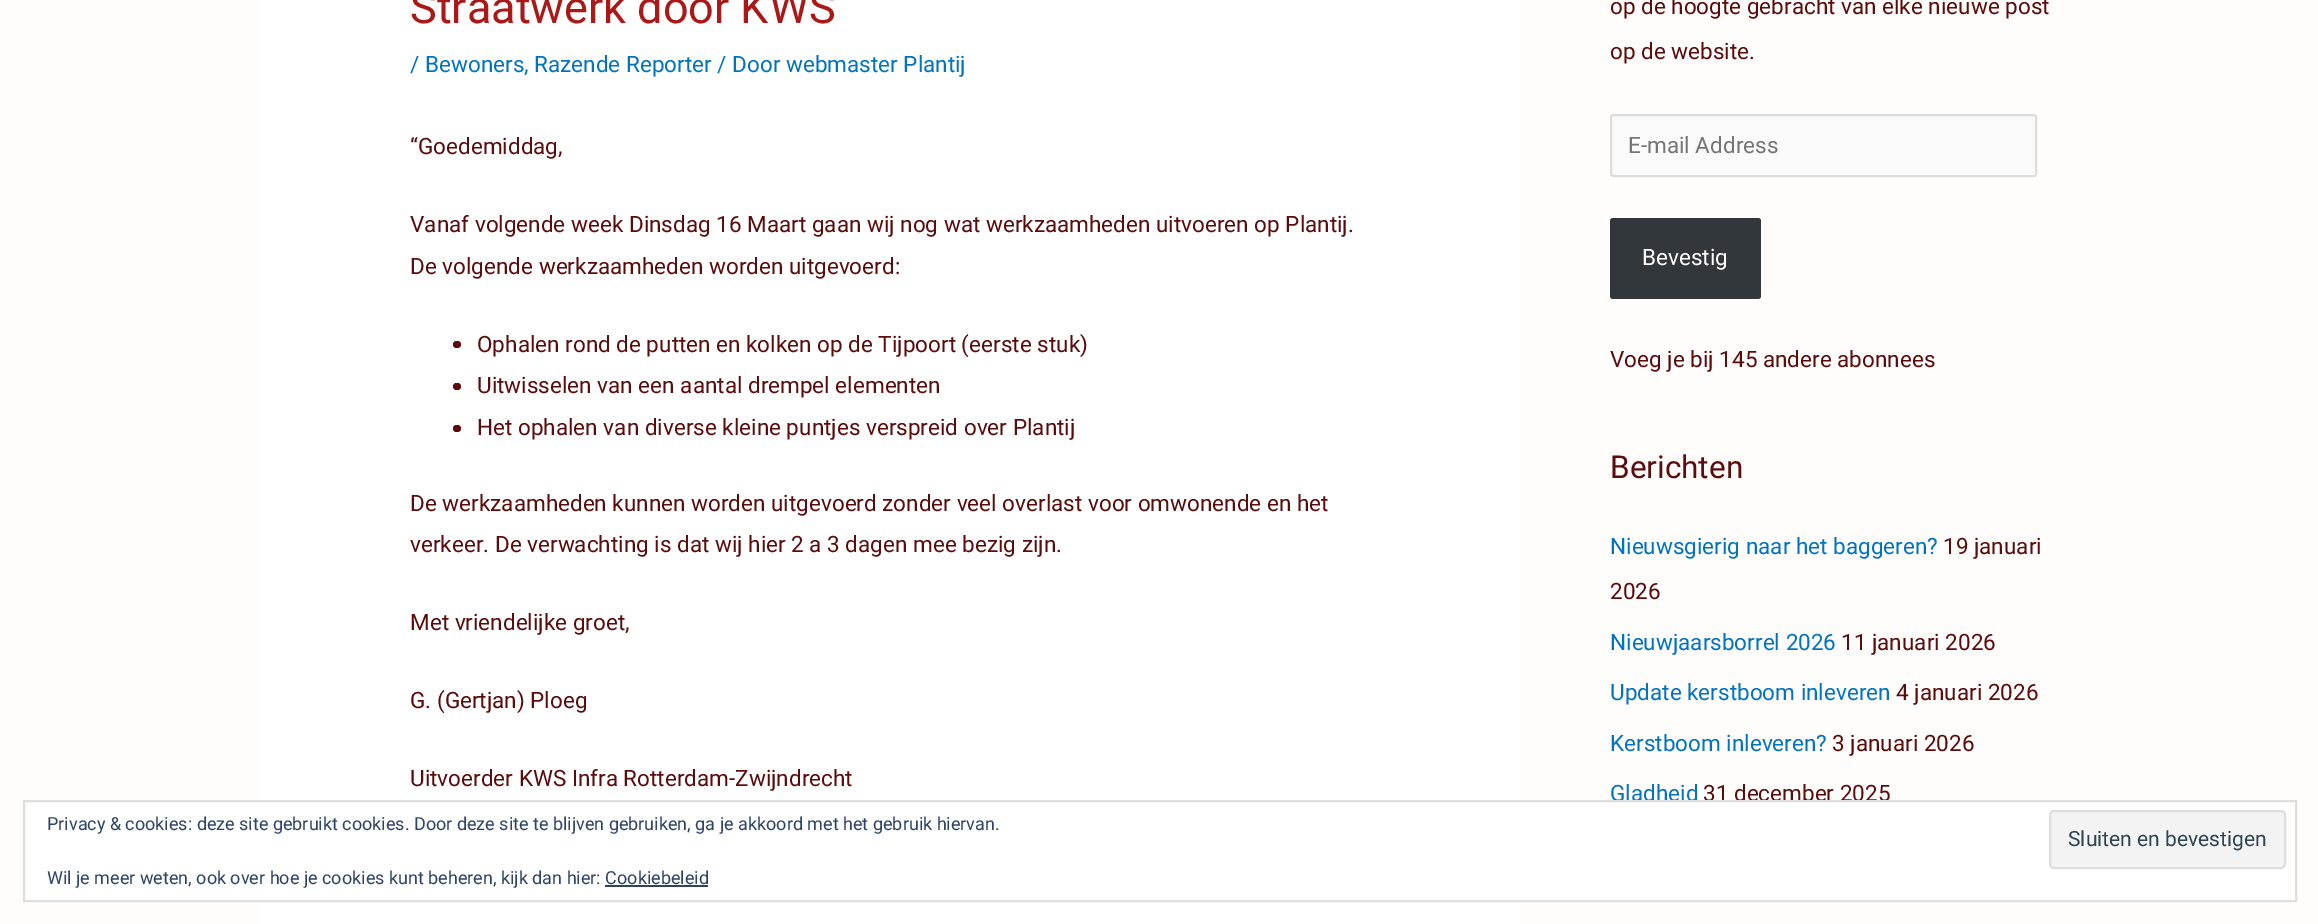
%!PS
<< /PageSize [2318 924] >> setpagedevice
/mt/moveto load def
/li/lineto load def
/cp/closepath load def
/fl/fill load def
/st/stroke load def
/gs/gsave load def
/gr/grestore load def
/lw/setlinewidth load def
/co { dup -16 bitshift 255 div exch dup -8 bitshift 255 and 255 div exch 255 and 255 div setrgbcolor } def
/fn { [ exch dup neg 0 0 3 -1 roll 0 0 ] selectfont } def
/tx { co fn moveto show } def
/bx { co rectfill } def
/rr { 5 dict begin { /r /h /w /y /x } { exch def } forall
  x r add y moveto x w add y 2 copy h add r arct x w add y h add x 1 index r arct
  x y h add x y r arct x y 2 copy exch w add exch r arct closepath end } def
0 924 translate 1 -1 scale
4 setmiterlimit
0 0 2318 924 16#FFFCFC bx
260 0 1260 924 16#FFFFFF bx
16#5B0D0D co
453 341 8 7 3.5 rr fl
453 383 8 7 3.5 rr fl
453 425 8 7 3.5 rr fl
16#FAFAFA co
1611 115 425 61 2 rr gs fl gr
16#DDDDDD co
2 lw
st
16#32373C co
1610 218 151 81 3 rr fl
(Straatwerk door KWS) 410 23 /Roboto-Regular 45 16#AA1818 tx
(/ Bewoners, Razende Reporter / Door webmaster Plantij) 410 72 /Roboto-Regular 22.5 16#0274BE tx
(“Goedemiddag,) 410 154 /Roboto-Regular 22.5 16#5B0D0D tx
(Vanaf volgende week Dinsdag 16 Maart gaan wij nog wat werkzaamheden uitvoeren op Plantij.) 410 232 /Roboto-Regular 22.5 16#5B0D0D tx
(De volgende werkzaamheden worden uitgevoerd:) 410 274 /Roboto-Regular 22.5 16#5B0D0D tx
(Ophalen rond de putten en kolken op de Tijpoort \(eerste stuk\)) 477 352 /Roboto-Regular 22.5 16#5B0D0D tx
(Uitwisselen van een aantal drempel elementen) 477 393 /Roboto-Regular 22.5 16#5B0D0D tx
(Het ophalen van diverse kleine puntjes verspreid over Plantij) 477 435 /Roboto-Regular 22.5 16#5B0D0D tx
(De werkzaamheden kunnen worden uitgevoerd zonder veel overlast voor omwonende en het) 410 511 /Roboto-Regular 22.5 16#5B0D0D tx
(verkeer. De verwachting is dat wij hier 2 a 3 dagen mee bezig zijn.) 410 552 /Roboto-Regular 22.5 16#5B0D0D tx
(Met vriendelijke groet,) 410 630 /Roboto-Regular 22.5 16#5B0D0D tx
(G. \(Gertjan\) Ploeg) 410 708 /Roboto-Regular 22.5 16#5B0D0D tx
(Uitvoerder KWS Infra Rotterdam-Zwijndrecht) 410 786 /Roboto-Regular 22.5 16#5B0D0D tx
(op de hoogte gebracht van elke nieuwe post) 1610 14 /Roboto-Regular 22.5 16#5B0D0D tx
(op de website.) 1610 59 /Roboto-Regular 22.5 16#5B0D0D tx
(E-mail Address) 1628 153 /Roboto-Regular 22.5 16#757575 tx
(Bevestig) 1642 265 /Roboto-Regular 22.5 16#FFFFFF tx
(Voeg je bij 145 andere abonnees) 1610 367 /Roboto-Regular 22.5 16#5B0D0D tx
(Berichten) 1610 478 /Roboto-Regular 31.5 16#5B0D0D tx
(Nieuwsgierig naar het baggeren?) 1610 554 /Roboto-Regular 22.5 16#0274BE tx
(19 januari) 1943 554 /Roboto-Regular 22.5 16#5B0D0D tx
(2026) 1610 599 /Roboto-Regular 22.5 16#5B0D0D tx
(Nieuwjaarsborrel 2026) 1610 650 /Roboto-Regular 22.5 16#0274BE tx
(11 januari 2026) 1841 650 /Roboto-Regular 22.5 16#5B0D0D tx
(Update kerstboom inleveren) 1610 700 /Roboto-Regular 22.5 16#0274BE tx
(4 januari 2026) 1896 700 /Roboto-Regular 22.5 16#5B0D0D tx
(Kerstboom inleveren?) 1610 751 /Roboto-Regular 22.5 16#0274BE tx
(3 januari 2026) 1832 751 /Roboto-Regular 22.5 16#5B0D0D tx
(Gladheid) 1610 801 /Roboto-Regular 22.5 16#0274BE tx
(31 december 2025) 1703 801 /Roboto-Regular 22.5 16#5B0D0D tx
16#FFFFFF co
24 801 mt 2296 801 li 2296 901 li 24 901 li cp gs fl gr
16#DEDEDE co
st
(Privacy & cookies: deze site gebruikt cookies. Door deze site te blijven gebruiken, ga je akkoord met het gebruik hiervan.) 47 830 /Roboto-Regular 18 16#2E4467 tx
16#F3F3F3 co
2050 811 235 57 4 rr gs fl gr
16#DEDEDE co
st
(Sluiten en bevestigen) 2068 846 /Roboto-Regular 21 16#2E4453 tx
(Wil je meer weten, ook over hoe je cookies kunt beheren, kijk dan hier: Cookiebeleid) 47 884 /Roboto-Regular 18 16#2E4467 tx
605 885 103 2 16#2E4467 bx
showpage
